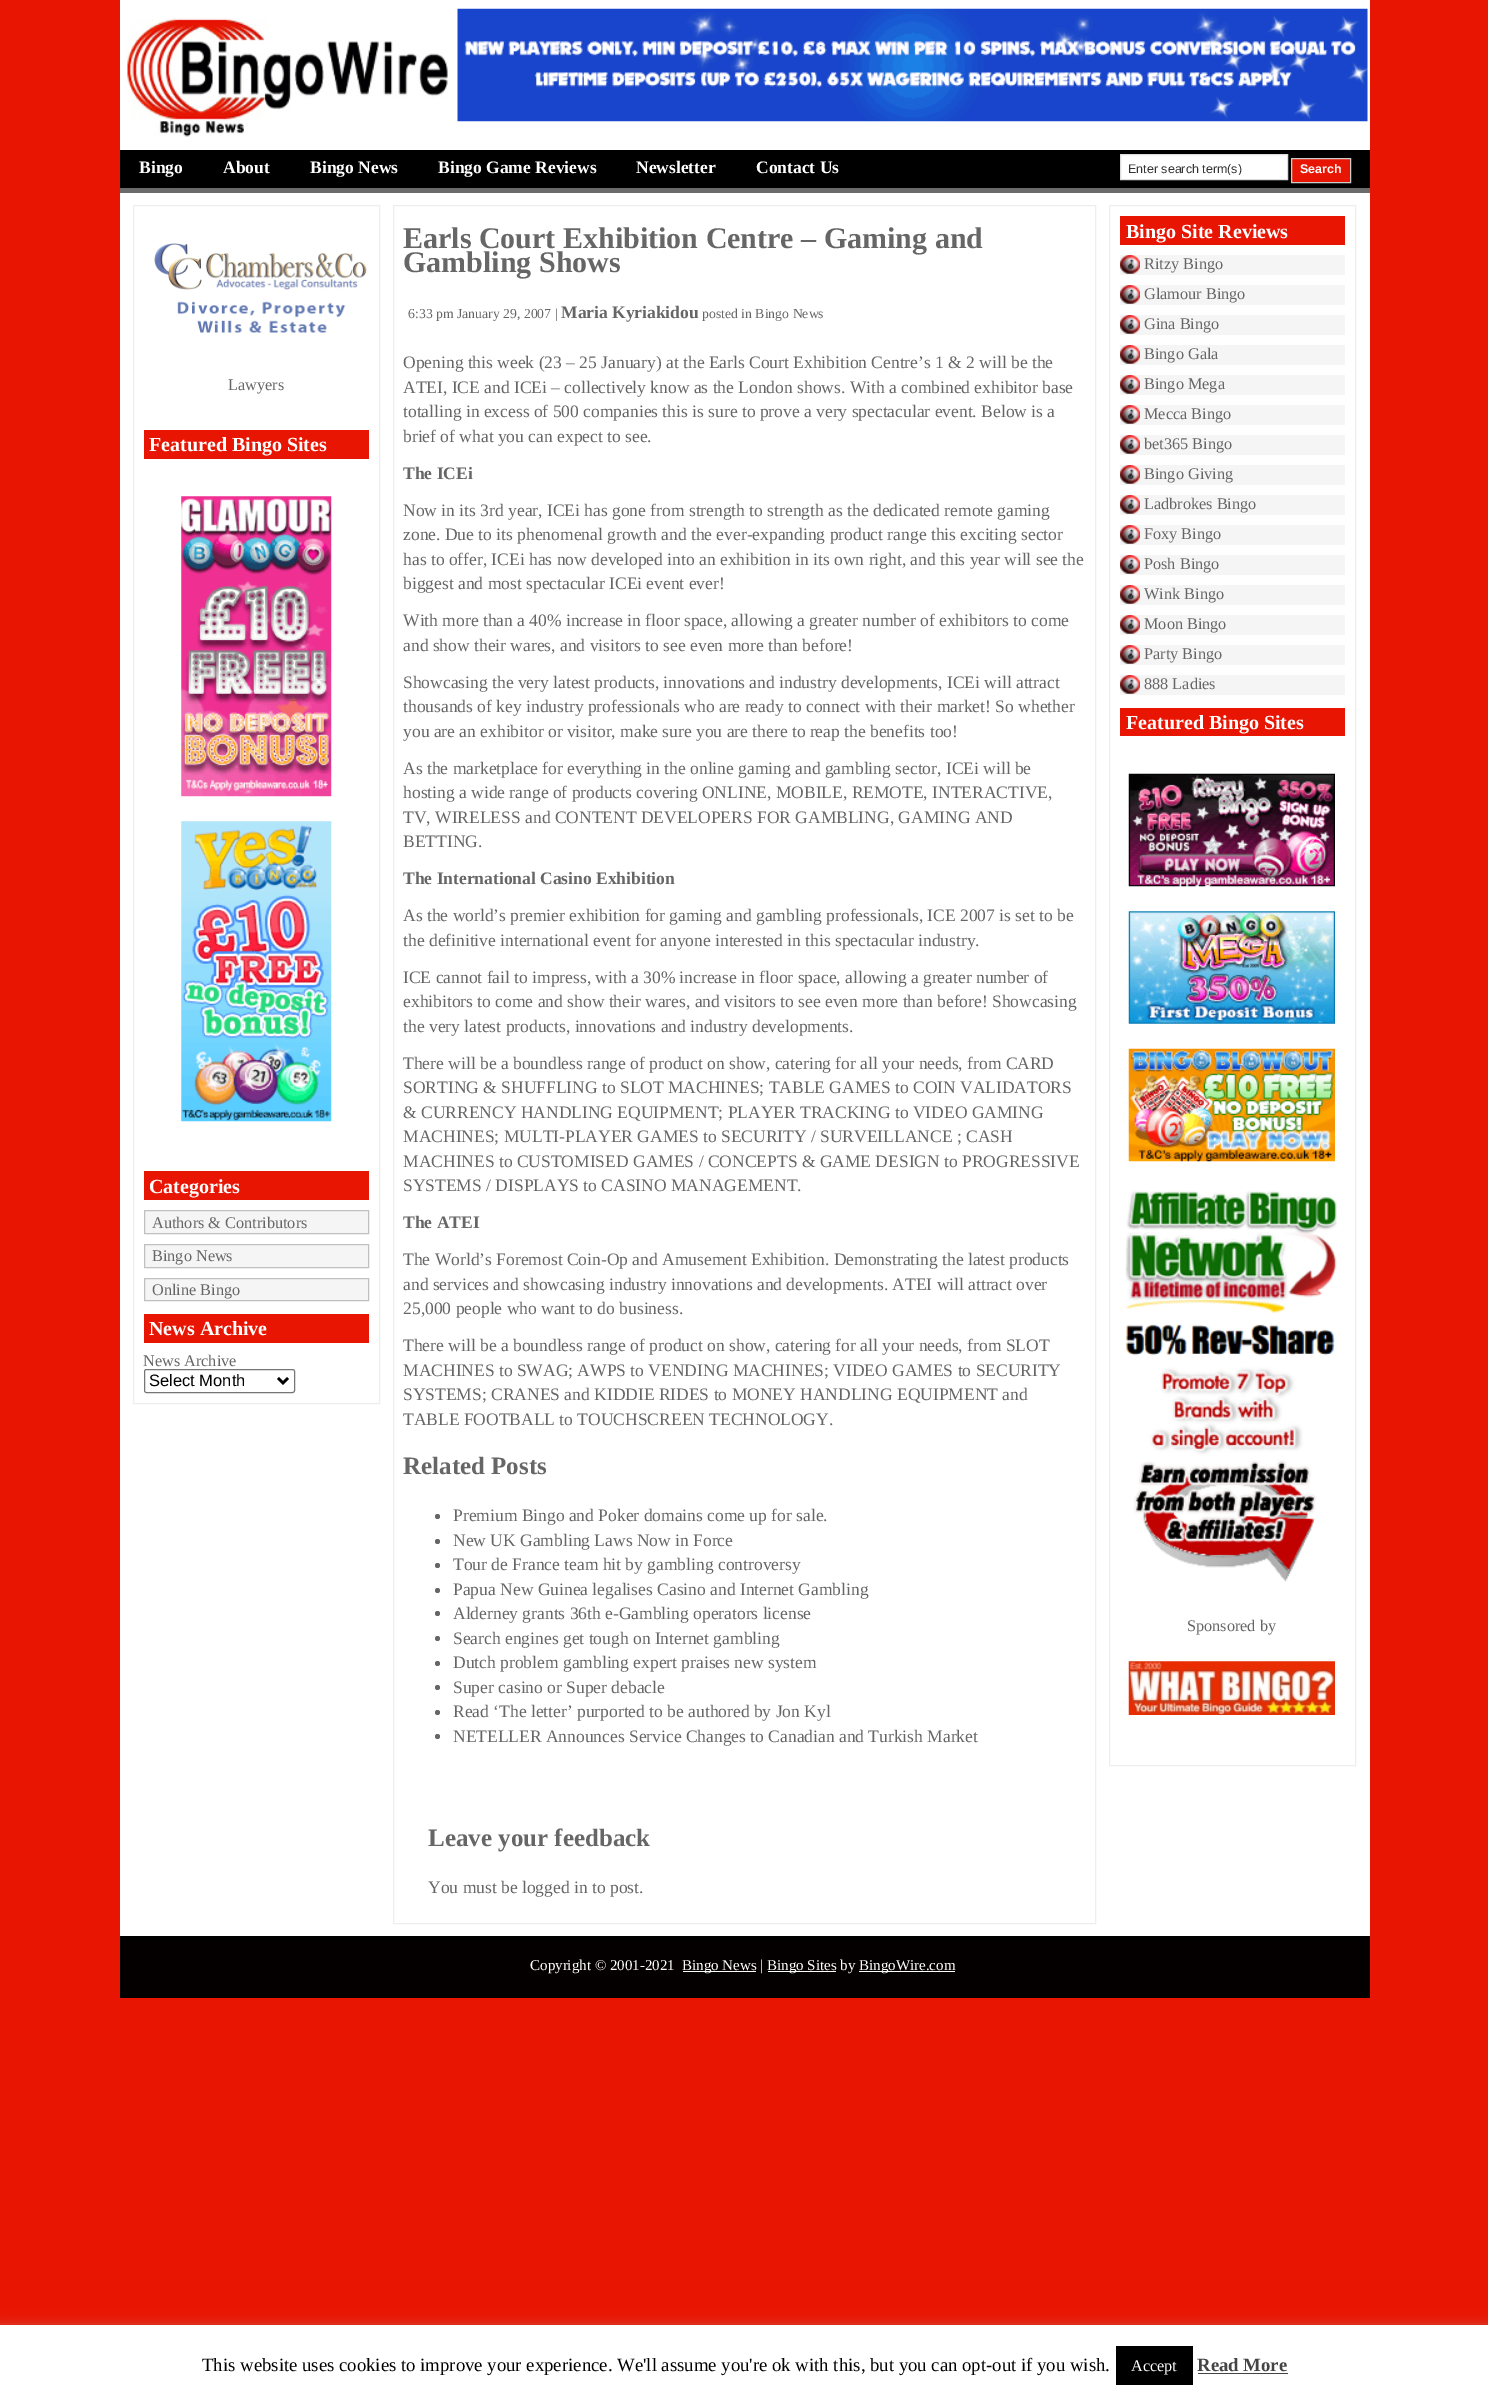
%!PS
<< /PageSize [1488 2400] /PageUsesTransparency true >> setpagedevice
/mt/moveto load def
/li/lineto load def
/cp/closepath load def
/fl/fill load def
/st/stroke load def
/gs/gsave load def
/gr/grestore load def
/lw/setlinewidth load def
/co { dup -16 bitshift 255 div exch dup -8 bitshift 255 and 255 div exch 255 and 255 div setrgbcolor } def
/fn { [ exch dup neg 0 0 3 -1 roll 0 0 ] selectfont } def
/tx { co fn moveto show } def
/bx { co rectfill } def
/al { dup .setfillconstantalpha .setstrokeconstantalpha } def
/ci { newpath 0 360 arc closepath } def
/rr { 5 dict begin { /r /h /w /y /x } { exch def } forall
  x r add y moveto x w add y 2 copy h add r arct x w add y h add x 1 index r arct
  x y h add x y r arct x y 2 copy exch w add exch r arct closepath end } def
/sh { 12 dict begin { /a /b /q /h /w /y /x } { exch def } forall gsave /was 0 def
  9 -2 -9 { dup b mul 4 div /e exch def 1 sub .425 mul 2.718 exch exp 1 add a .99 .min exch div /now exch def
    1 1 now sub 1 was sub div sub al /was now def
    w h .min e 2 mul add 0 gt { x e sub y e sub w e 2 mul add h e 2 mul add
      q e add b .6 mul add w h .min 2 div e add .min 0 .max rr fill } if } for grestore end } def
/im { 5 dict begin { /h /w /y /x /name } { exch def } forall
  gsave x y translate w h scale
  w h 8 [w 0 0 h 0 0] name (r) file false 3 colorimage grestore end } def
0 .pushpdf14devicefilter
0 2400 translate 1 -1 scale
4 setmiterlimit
0 0 1488 2400 16#E81502 bx
120 0 1250 1936 16#FFFFFF bx
(media/1.raw) 125 18 323 119 im
(media/2.raw) 457 8 911 114 im
120 150 1250 38 16#000000 bx
120 188 1250 5 16#6B6B6B bx
16#FFFFFF co
1120.5 154.5 mt 1287.5 154.5 li 1287.5 179.5 li 1120.5 179.5 li cp gs fl gr
16#DDDDDD co
st
16#E81502 co
1291.5 158.5 mt 1350.5 158.5 li 1350.5 182.5 li 1291.5 182.5 li cp gs fl gr
16#CCCCCC co
st
16#EEEEEE co
133.5 205.5 246 1198 rectstroke
(media/3.raw) 154 243 214 90 im
144 430 225 29 16#E81502 bx
(media/4.raw) 181 496 151 301 im
(media/5.raw) 181 821 151 301 im
144 1171 225 29 16#E81502 bx
16#F5F5F5 co
144.5 1210.5 mt 368.5 1210.5 li 368.5 1233.5 li 144.5 1233.5 li cp gs fl gr
16#C0C0C0 co
st
16#F5F5F5 co
144.5 1244.5 mt 368.5 1244.5 li 368.5 1267.5 li 144.5 1267.5 li cp gs fl gr
16#C0C0C0 co
st
16#F5F5F5 co
144.5 1278.5 mt 368.5 1278.5 li 368.5 1300.5 li 144.5 1300.5 li cp gs fl gr
16#C0C0C0 co
st
144 1314 225 29 16#E81502 bx
16#767676 co
144.5 1369.5 150 23 2 rr st
16#000000 co
2.5 lw
278 1378 mt 283 1383 li 288 1378 li st
16#EEEEEE co
1 lw
393.5 205.5 702 1718 rectstroke
16#666666 co
437.5 1516.5 2.5 ci fl
437.5 1541.5 2.5 ci fl
437.5 1565.5 2.5 ci fl
437.5 1590.5 2.5 ci fl
437.5 1613.5 2.5 ci fl
437.5 1638.5 2.5 ci fl
437.5 1663.5 2.5 ci fl
437.5 1687.5 2.5 ci fl
437.5 1712.5 2.5 ci fl
437.5 1736.5 2.5 ci fl
16#EEEEEE co
1109.5 205.5 246 1560 rectstroke
1120 216 225 29 16#E81502 bx
1120 255 225 20 16#F5F5F5 bx
(media/6.raw) 1120 255 20 19 im
1120 285 225 20 16#F5F5F5 bx
(media/7.raw) 1120 285 20 19 im
1120 315 225 20 16#F5F5F5 bx
(media/6.raw) 1120 315 20 19 im
1120 345 225 20 16#F5F5F5 bx
(media/6.raw) 1120 345 20 19 im
1120 375 225 20 16#F5F5F5 bx
(media/6.raw) 1120 375 20 19 im
1120 405 225 20 16#F5F5F5 bx
(media/6.raw) 1120 405 20 19 im
1120 435 225 20 16#F5F5F5 bx
(media/6.raw) 1120 435 20 19 im
1120 465 225 20 16#F5F5F5 bx
(media/6.raw) 1120 465 20 19 im
1120 495 225 20 16#F5F5F5 bx
(media/6.raw) 1120 495 20 19 im
1120 525 225 20 16#F5F5F5 bx
(media/6.raw) 1120 525 20 19 im
1120 555 225 20 16#F5F5F5 bx
(media/6.raw) 1120 555 20 19 im
1120 585 225 20 16#F5F5F5 bx
(media/8.raw) 1120 585 20 19 im
1120 615 225 20 16#F5F5F5 bx
(media/6.raw) 1120 615 20 19 im
1120 645 225 20 16#F5F5F5 bx
(media/6.raw) 1120 645 20 19 im
1120 675 225 20 16#F5F5F5 bx
(media/6.raw) 1120 675 20 19 im
1120 708 225 28 16#E81502 bx
(media/9.raw) 1128 773 207 114 im
(media/10.raw) 1128 911 207 113 im
(media/11.raw) 1128 1048 207 114 im
(media/12.raw) 1125 1190 212 392 im
(media/13.raw) 1128 1661 207 54 im
120 1941 1250 57 16#050000 bx
120 1936 1250 5 16#000000 bx
683 1971 73 1 16#FFFFFF bx
768 1971 68 1 16#FFFFFF bx
859 1971 96 1 16#FFFFFF bx
16#ACABAB co
0 2324 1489 75 0 6 .3 sh
0 2325 1488 75 16#FFFFFF bx
1116 2346 77 39 16#000000 bx
1198 2373 90 1 16#444444 bx
(Bingo) 139 173 /LiberationSerif-Bold 17.5 16#FFFFFF tx
(About) 223 173 /LiberationSerif-Bold 17.5 16#FFFFFF tx
(Bingo News) 310 173 /LiberationSerif-Bold 17.5 16#FFFFFF tx
(Bingo Game Reviews) 438 173 /LiberationSerif-Bold 17.5 16#FFFFFF tx
(Newsletter) 636 173 /LiberationSerif-Bold 17.5 16#FFFFFF tx
(Contact Us) 756 173 /LiberationSerif-Bold 17.5 16#FFFFFF tx
gs
1129 161 150 14 rectclip
(Enter search term\(s\)) 1128 173 /LiberationSans-Regular 12.5 16#333333 tx
gr
(Search) 1300 173 /LiberationSans-Bold 12.5 16#FFFFFF tx
(Lawyers) 228 390 /LiberationSerif-Regular 16.25 16#666666 tx
(Featured Bingo Sites) 149 451 /LiberationSerif-Bold 20 16#FFFFFF tx
(Categories) 149 1193 /LiberationSerif-Bold 20 16#FFFFFF tx
(Authors & Contributors) 152 1228 /LiberationSerif-Regular 16.25 16#666666 tx
(Bingo News) 152 1261 /LiberationSerif-Regular 16.25 16#666666 tx
(Online Bingo) 152 1295 /LiberationSerif-Regular 16.25 16#666666 tx
(News Archive) 149 1335 /LiberationSerif-Bold 20 16#FFFFFF tx
(News Archive) 143 1366 /LiberationSerif-Regular 16.25 16#666666 tx
(Select Month) 149 1386 /LiberationSans-Regular 16.5 16#000000 tx
(Earls Court Exhibition Centre – Gaming and) 403 248 /LiberationSerif-Bold 30 16#666666 tx
(Gambling Shows) 403 272 /LiberationSerif-Bold 30 16#666666 tx
(6:33 pm January 29, 2007 |) 408 318 /LiberationSerif-Regular 13.75 16#666666 tx
(Maria Kyriakidou) 561 318 /LiberationSerif-Bold 17.5 16#666666 tx
(posted in Bingo News) 702 318 /LiberationSerif-Regular 13.75 16#666666 tx
(Opening this week \(23 – 25 January\) at the Earls Court Exhibition Centre’s 1 & 2 will be the) 403 368 /LiberationSerif-Regular 17.5 16#666666 tx
(ATEI, ICE and ICEi – collectively know as the London shows. With a combined exhibitor base) 403 393 /LiberationSerif-Regular 17.5 16#666666 tx
(totalling in excess of 500 companies this is sure to prove a very spectacular event. Below is a) 403 417 /LiberationSerif-Regular 17.5 16#666666 tx
(brief of what you can expect to see.) 403 442 /LiberationSerif-Regular 17.5 16#666666 tx
(The ICEi) 403 479 /LiberationSerif-Bold 17.5 16#666666 tx
(Now in its 3rd year, ICEi has gone from strength to strength as the dedicated remote gaming) 403 516 /LiberationSerif-Regular 17.5 16#666666 tx
(zone. Due to its phenomenal growth and the ever-expanding product range this exciting sector) 403 540 /LiberationSerif-Regular 17.5 16#666666 tx
(has to offer, ICEi has now developed into an exhibition in its own right, and this year will see the) 403 565 /LiberationSerif-Regular 17.5 16#666666 tx
(biggest and most spectacular ICEi event ever!) 403 589 /LiberationSerif-Regular 17.5 16#666666 tx
(With more than a 40% increase in floor space, allowing a greater number of exhibitors to come) 403 626 /LiberationSerif-Regular 17.5 16#666666 tx
(and show their wares, and visitors to see even more than before!) 403 651 /LiberationSerif-Regular 17.5 16#666666 tx
(Showcasing the very latest products, innovations and industry developments, ICEi will attract) 403 688 /LiberationSerif-Regular 17.5 16#666666 tx
(thousands of key industry professionals who are ready to connect with their market! So whether) 403 712 /LiberationSerif-Regular 17.5 16#666666 tx
(you are an exhibitor or visitor, make sure you are there to reap the benefits too!) 403 737 /LiberationSerif-Regular 17.5 16#666666 tx
(As the marketplace for everything in the online gaming and gambling sector, ICEi will be) 403 774 /LiberationSerif-Regular 17.5 16#666666 tx
(hosting a wide range of products covering ONLINE, MOBILE, REMOTE, INTERACTIVE,) 403 798 /LiberationSerif-Regular 17.5 16#666666 tx
(TV, WIRELESS and CONTENT DEVELOPERS FOR GAMBLING, GAMING AND) 403 823 /LiberationSerif-Regular 17.5 16#666666 tx
(BETTING.) 403 847 /LiberationSerif-Regular 17.5 16#666666 tx
(The International Casino Exhibition) 403 884 /LiberationSerif-Bold 17.5 16#666666 tx
(As the world’s premier exhibition for gaming and gambling professionals, ICE 2007 is set to be) 403 921 /LiberationSerif-Regular 17.5 16#666666 tx
(the definitive international event for anyone interested in this spectacular industry.) 403 946 /LiberationSerif-Regular 17.5 16#666666 tx
(ICE cannot fail to impress, with a 30% increase in floor space, allowing a greater number of) 403 983 /LiberationSerif-Regular 17.5 16#666666 tx
(exhibitors to come and show their wares, and visitors to see even more than before! Showcasing) 403 1007 /LiberationSerif-Regular 17.5 16#666666 tx
(the very latest products, innovations and industry developments.) 403 1032 /LiberationSerif-Regular 17.5 16#666666 tx
(There will be a boundless range of product on show, catering for all your needs, from CARD) 403 1069 /LiberationSerif-Regular 17.5 16#666666 tx
(SORTING & SHUFFLING to SLOT MACHINES; TABLE GAMES to COIN VALIDATORS) 403 1093 /LiberationSerif-Regular 17.5 16#666666 tx
(& CURRENCY HANDLING EQUIPMENT; PLAYER TRACKING to VIDEO GAMING) 403 1118 /LiberationSerif-Regular 17.5 16#666666 tx
(MACHINES; MULTI-PLAYER GAMES to SECURITY / SURVEILLANCE ; CASH) 403 1142 /LiberationSerif-Regular 17.5 16#666666 tx
(MACHINES to CUSTOMISED GAMES / CONCEPTS & GAME DESIGN to PROGRESSIVE) 403 1167 /LiberationSerif-Regular 17.5 16#666666 tx
(SYSTEMS / DISPLAYS to CASINO MANAGEMENT.) 403 1191 /LiberationSerif-Regular 17.5 16#666666 tx
(The ATEI) 403 1228 /LiberationSerif-Bold 17.5 16#666666 tx
(The World’s Foremost Coin-Op and Amusement Exhibition. Demonstrating the latest products) 403 1265 /LiberationSerif-Regular 17.5 16#666666 tx
(and services and showcasing industry innovations and developments. ATEI will attract over) 403 1290 /LiberationSerif-Regular 17.5 16#666666 tx
(25,000 people who want to do business.) 403 1314 /LiberationSerif-Regular 17.5 16#666666 tx
(There will be a boundless range of product on show, catering for all your needs, from SLOT) 403 1351 /LiberationSerif-Regular 17.5 16#666666 tx
(MACHINES to SWAG; AWPS to VENDING MACHINES; VIDEO GAMES to SECURITY) 403 1376 /LiberationSerif-Regular 17.5 16#666666 tx
(SYSTEMS; CRANES and KIDDIE RIDES to MONEY HANDLING EQUIPMENT and) 403 1400 /LiberationSerif-Regular 17.5 16#666666 tx
(TABLE FOOTBALL to TOUCHSCREEN TECHNOLOGY.) 403 1425 /LiberationSerif-Regular 17.5 16#666666 tx
(Related Posts) 403 1474 /LiberationSerif-Bold 25 16#666666 tx
(Premium Bingo and Poker domains come up for sale.) 453 1521 /LiberationSerif-Regular 17.5 16#666666 tx
(New UK Gambling Laws Now in Force) 453 1546 /LiberationSerif-Regular 17.5 16#666666 tx
(Tour de France team hit by gambling controversy) 453 1570 /LiberationSerif-Regular 17.5 16#666666 tx
(Papua New Guinea legalises Casino and Internet Gambling) 453 1595 /LiberationSerif-Regular 17.5 16#666666 tx
(Alderney grants 36th e-Gambling operators license) 453 1619 /LiberationSerif-Regular 17.5 16#666666 tx
(Search engines get tough on Internet gambling) 453 1644 /LiberationSerif-Regular 17.5 16#666666 tx
(Dutch problem gambling expert praises new system) 453 1668 /LiberationSerif-Regular 17.5 16#666666 tx
(Super casino or Super debacle) 453 1693 /LiberationSerif-Regular 17.5 16#666666 tx
(Read ‘The letter’ purported to be authored by Jon Kyl) 453 1717 /LiberationSerif-Regular 17.5 16#666666 tx
(NETELLER Announces Service Changes to Canadian and Turkish Market) 453 1742 /LiberationSerif-Regular 17.5 16#666666 tx
(Leave your feedback) 428 1846 /LiberationSerif-Bold 25 16#666666 tx
(You must be logged in to post.) 428 1893 /LiberationSerif-Regular 17.5 16#666666 tx
(Bingo Site Reviews) 1126 238 /LiberationSerif-Bold 20 16#FFFFFF tx
(Ritzy Bingo) 1144 269 /LiberationSerif-Regular 16.25 16#666666 tx
(Glamour Bingo) 1144 299 /LiberationSerif-Regular 16.25 16#666666 tx
(Gina Bingo) 1144 329 /LiberationSerif-Regular 16.25 16#666666 tx
(Bingo Gala) 1144 359 /LiberationSerif-Regular 16.25 16#666666 tx
(Bingo Mega) 1144 389 /LiberationSerif-Regular 16.25 16#666666 tx
(Mecca Bingo) 1144 419 /LiberationSerif-Regular 16.25 16#666666 tx
(bet365 Bingo) 1144 449 /LiberationSerif-Regular 16.25 16#666666 tx
(Bingo Giving) 1144 479 /LiberationSerif-Regular 16.25 16#666666 tx
(Ladbrokes Bingo) 1144 509 /LiberationSerif-Regular 16.25 16#666666 tx
(Foxy Bingo) 1144 539 /LiberationSerif-Regular 16.25 16#666666 tx
(Posh Bingo) 1144 569 /LiberationSerif-Regular 16.25 16#666666 tx
(Wink Bingo) 1144 599 /LiberationSerif-Regular 16.25 16#666666 tx
(Moon Bingo) 1144 629 /LiberationSerif-Regular 16.25 16#666666 tx
(Party Bingo) 1144 659 /LiberationSerif-Regular 16.25 16#666666 tx
(888 Ladies) 1144 689 /LiberationSerif-Regular 16.25 16#666666 tx
(Featured Bingo Sites) 1126 729 /LiberationSerif-Bold 20 16#FFFFFF tx
(Sponsored by) 1187 1631 /LiberationSerif-Regular 16.25 16#666666 tx
(Copyright © 2001-2021) 530 1970 /LiberationSerif-Regular 15 16#FFFFFF tx
(Bingo News |) 682 1970 /LiberationSerif-Regular 15 16#FFFFFF tx
(Bingo Sites by) 767 1970 /LiberationSerif-Regular 15 16#FFFFFF tx
(BingoWire.com) 859 1970 /LiberationSerif-Regular 15 16#FFFFFF tx
(This website uses cookies to improve your experience. We'll assume you're ok with this, but you can opt-out if you wish.) 202 2371 /LiberationSerif-Regular 18.75 16#000000 tx
(Accept) 1131 2371 /LiberationSerif-Regular 16.25 16#FFFFFF tx
(Read More) 1197 2371 /LiberationSerif-Bold 18.75 16#444444 tx
.poppdf14devicefilter showpage
